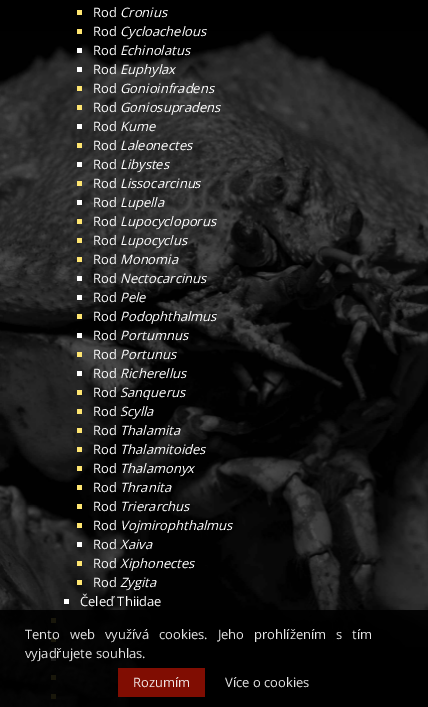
%!PS
<< /PageSize [428 707] /PageUsesTransparency true >> setpagedevice
/mt/moveto load def
/co { dup -16 bitshift 255 div exch dup -8 bitshift 255 and 255 div exch 255 and 255 div setrgbcolor } def
/fn { [ exch dup neg 0 0 3 -1 roll 0 0 ] selectfont } def
/tx { co fn moveto show } def
/bx { co rectfill } def
/al { dup .setfillconstantalpha .setstrokeconstantalpha } def
/im { 5 dict begin { /h /w /y /x /name } { exch def } forall
  gsave x y translate w h scale
  w h 8 [w 0 0 h 0 0] name (r) file false 3 colorimage grestore end } def
0 .pushpdf14devicefilter
0 707 translate 1 -1 scale
4 setmiterlimit
0 0 428 707 16#000000 bx
(media/1.raw) 0 31 428 676 im
77 10 5 5 16#FFE671 bx
77 29 5 5 16#FFE671 bx
77 48 5 5 16#FFFFFF bx
77 67 5 5 16#FFFFFF bx
77 86 5 5 16#FFE671 bx
77 105 5 5 16#FFE671 bx
77 124 5 5 16#FFFFFF bx
77 143 5 5 16#FFE671 bx
77 162 5 5 16#FFFFFF bx
77 181 5 5 16#FFE671 bx
77 200 5 5 16#FFFFFF bx
77 219 5 5 16#FFE671 bx
77 238 5 5 16#FFE671 bx
77 257 5 5 16#FFE671 bx
77 276 5 5 16#FFFFFF bx
77 295 5 5 16#FFFFFF bx
77 314 5 5 16#FFE671 bx
77 333 5 5 16#FFFFFF bx
77 352 5 5 16#FFE671 bx
77 371 5 5 16#FFFFFF bx
77 390 5 5 16#FFE671 bx
77 409 5 5 16#FFE671 bx
77 428 5 5 16#FFE671 bx
77 447 5 5 16#FFE671 bx
77 466 5 5 16#FFE671 bx
77 485 5 5 16#FFE671 bx
77 504 5 5 16#FFE671 bx
77 523 5 5 16#FFE671 bx
77 542 5 5 16#FFFFFF bx
77 561 5 5 16#FFE671 bx
77 580 5 5 16#FFE671 bx
64 599 5 5 16#FFFFFF bx
51 618 5 5 16#FFE671 bx
51 637 5 5 16#FFE671 bx
51 656 5 5 16#FFFFFF bx
51 675 5 5 16#FFE671 bx
51 694 5 5 16#FFE671 bx
0.9 al
0 610 428 97 16#000000 bx
118 668 87 29 16#8E0E02 bx
1 al
(Rod) 93 17 /OpenSans-Regular 13 16#FFFFFF tx
(Cronius) 120 17 /OpenSans-Italic 13 16#FFFFFF tx
(Rod) 93 36 /OpenSans-Regular 13 16#FFFFFF tx
(Cycloachelous) 120 36 /OpenSans-Italic 13 16#FFFFFF tx
(Rod) 93 55 /OpenSans-Regular 13 16#FFFFFF tx
(Echinolatus) 120 55 /OpenSans-Italic 13 16#FFFFFF tx
(Rod) 93 74 /OpenSans-Regular 13 16#FFFFFF tx
(Euphylax) 120 74 /OpenSans-Italic 13 16#FFFFFF tx
(Rod) 93 93 /OpenSans-Regular 13 16#FFFFFF tx
(Gonioinfradens) 120 93 /OpenSans-Italic 13 16#FFFFFF tx
(Rod) 93 112 /OpenSans-Regular 13 16#FFFFFF tx
(Goniosupradens) 120 112 /OpenSans-Italic 13 16#FFFFFF tx
(Rod) 93 131 /OpenSans-Regular 13 16#FFFFFF tx
(Kume) 120 131 /OpenSans-Italic 13 16#FFFFFF tx
(Rod) 93 150 /OpenSans-Regular 13 16#FFFFFF tx
(Laleonectes) 120 150 /OpenSans-Italic 13 16#FFFFFF tx
(Rod) 93 169 /OpenSans-Regular 13 16#FFFFFF tx
(Libystes) 120 169 /OpenSans-Italic 13 16#FFFFFF tx
(Rod) 93 188 /OpenSans-Regular 13 16#FFFFFF tx
(Lissocarcinus) 120 188 /OpenSans-Italic 13 16#FFFFFF tx
(Rod) 93 207 /OpenSans-Regular 13 16#FFFFFF tx
(Lupella) 120 207 /OpenSans-Italic 13 16#FFFFFF tx
(Rod) 93 226 /OpenSans-Regular 13 16#FFFFFF tx
(Lupocycloporus) 120 226 /OpenSans-Italic 13 16#FFFFFF tx
(Rod) 93 245 /OpenSans-Regular 13 16#FFFFFF tx
(Lupocyclus) 120 245 /OpenSans-Italic 13 16#FFFFFF tx
(Rod) 93 264 /OpenSans-Regular 13 16#FFFFFF tx
(Monomia) 120 264 /OpenSans-Italic 13 16#FFFFFF tx
(Rod) 93 283 /OpenSans-Regular 13 16#FFFFFF tx
(Nectocarcinus) 120 283 /OpenSans-Italic 13 16#FFFFFF tx
(Rod) 93 302 /OpenSans-Regular 13 16#FFFFFF tx
(Pele) 120 302 /OpenSans-Italic 13 16#FFFFFF tx
(Rod) 93 321 /OpenSans-Regular 13 16#FFFFFF tx
(Podophthalmus) 120 321 /OpenSans-Italic 13 16#FFFFFF tx
(Rod) 93 340 /OpenSans-Regular 13 16#FFFFFF tx
(Portumnus) 120 340 /OpenSans-Italic 13 16#FFFFFF tx
(Rod) 93 359 /OpenSans-Regular 13 16#FFFFFF tx
(Portunus) 120 359 /OpenSans-Italic 13 16#FFFFFF tx
(Rod) 93 378 /OpenSans-Regular 13 16#FFFFFF tx
(Richerellus) 120 378 /OpenSans-Italic 13 16#FFFFFF tx
(Rod) 93 397 /OpenSans-Regular 13 16#FFFFFF tx
(Sanquerus) 120 397 /OpenSans-Italic 13 16#FFFFFF tx
(Rod) 93 416 /OpenSans-Regular 13 16#FFFFFF tx
(Scylla) 120 416 /OpenSans-Italic 13 16#FFFFFF tx
(Rod) 93 435 /OpenSans-Regular 13 16#FFFFFF tx
(Thalamita) 120 435 /OpenSans-Italic 13 16#FFFFFF tx
(Rod) 93 454 /OpenSans-Regular 13 16#FFFFFF tx
(Thalamitoides) 120 454 /OpenSans-Italic 13 16#FFFFFF tx
(Rod) 93 473 /OpenSans-Regular 13 16#FFFFFF tx
(Thalamonyx) 120 473 /OpenSans-Italic 13 16#FFFFFF tx
(Rod) 93 492 /OpenSans-Regular 13 16#FFFFFF tx
(Thranita) 120 492 /OpenSans-Italic 13 16#FFFFFF tx
(Rod) 93 511 /OpenSans-Regular 13 16#FFFFFF tx
(Trierarchus) 120 511 /OpenSans-Italic 13 16#FFFFFF tx
(Rod) 93 530 /OpenSans-Regular 13 16#FFFFFF tx
(Vojmirophthalmus) 120 530 /OpenSans-Italic 13 16#FFFFFF tx
(Rod) 93 549 /OpenSans-Regular 13 16#FFFFFF tx
(Xaiva) 120 549 /OpenSans-Italic 13 16#FFFFFF tx
(Rod) 93 568 /OpenSans-Regular 13 16#FFFFFF tx
(Xiphonectes) 120 568 /OpenSans-Italic 13 16#FFFFFF tx
(Rod) 93 587 /OpenSans-Regular 13 16#FFFFFF tx
(Zygita) 120 587 /OpenSans-Italic 13 16#FFFFFF tx
(Čeleď Thiidae) 80 606 /OpenSans-Regular 13 16#FFFFFF tx
16#E6E6E6 co
25 639 mt 6.5 0 32 (Tento web využívá cookies. Jeho prohlížením s tím) widthshow
(vyjadřujete souhlas.) 25 658 /OpenSans-Regular 13 16#E6E6E6 tx
(Rozumím) 133 687 /OpenSans-Regular 13 16#F2E7E6 tx
(Více o cookies) 225 687 /OpenSans-Regular 13 16#E6E6E6 tx
.poppdf14devicefilter showpage
